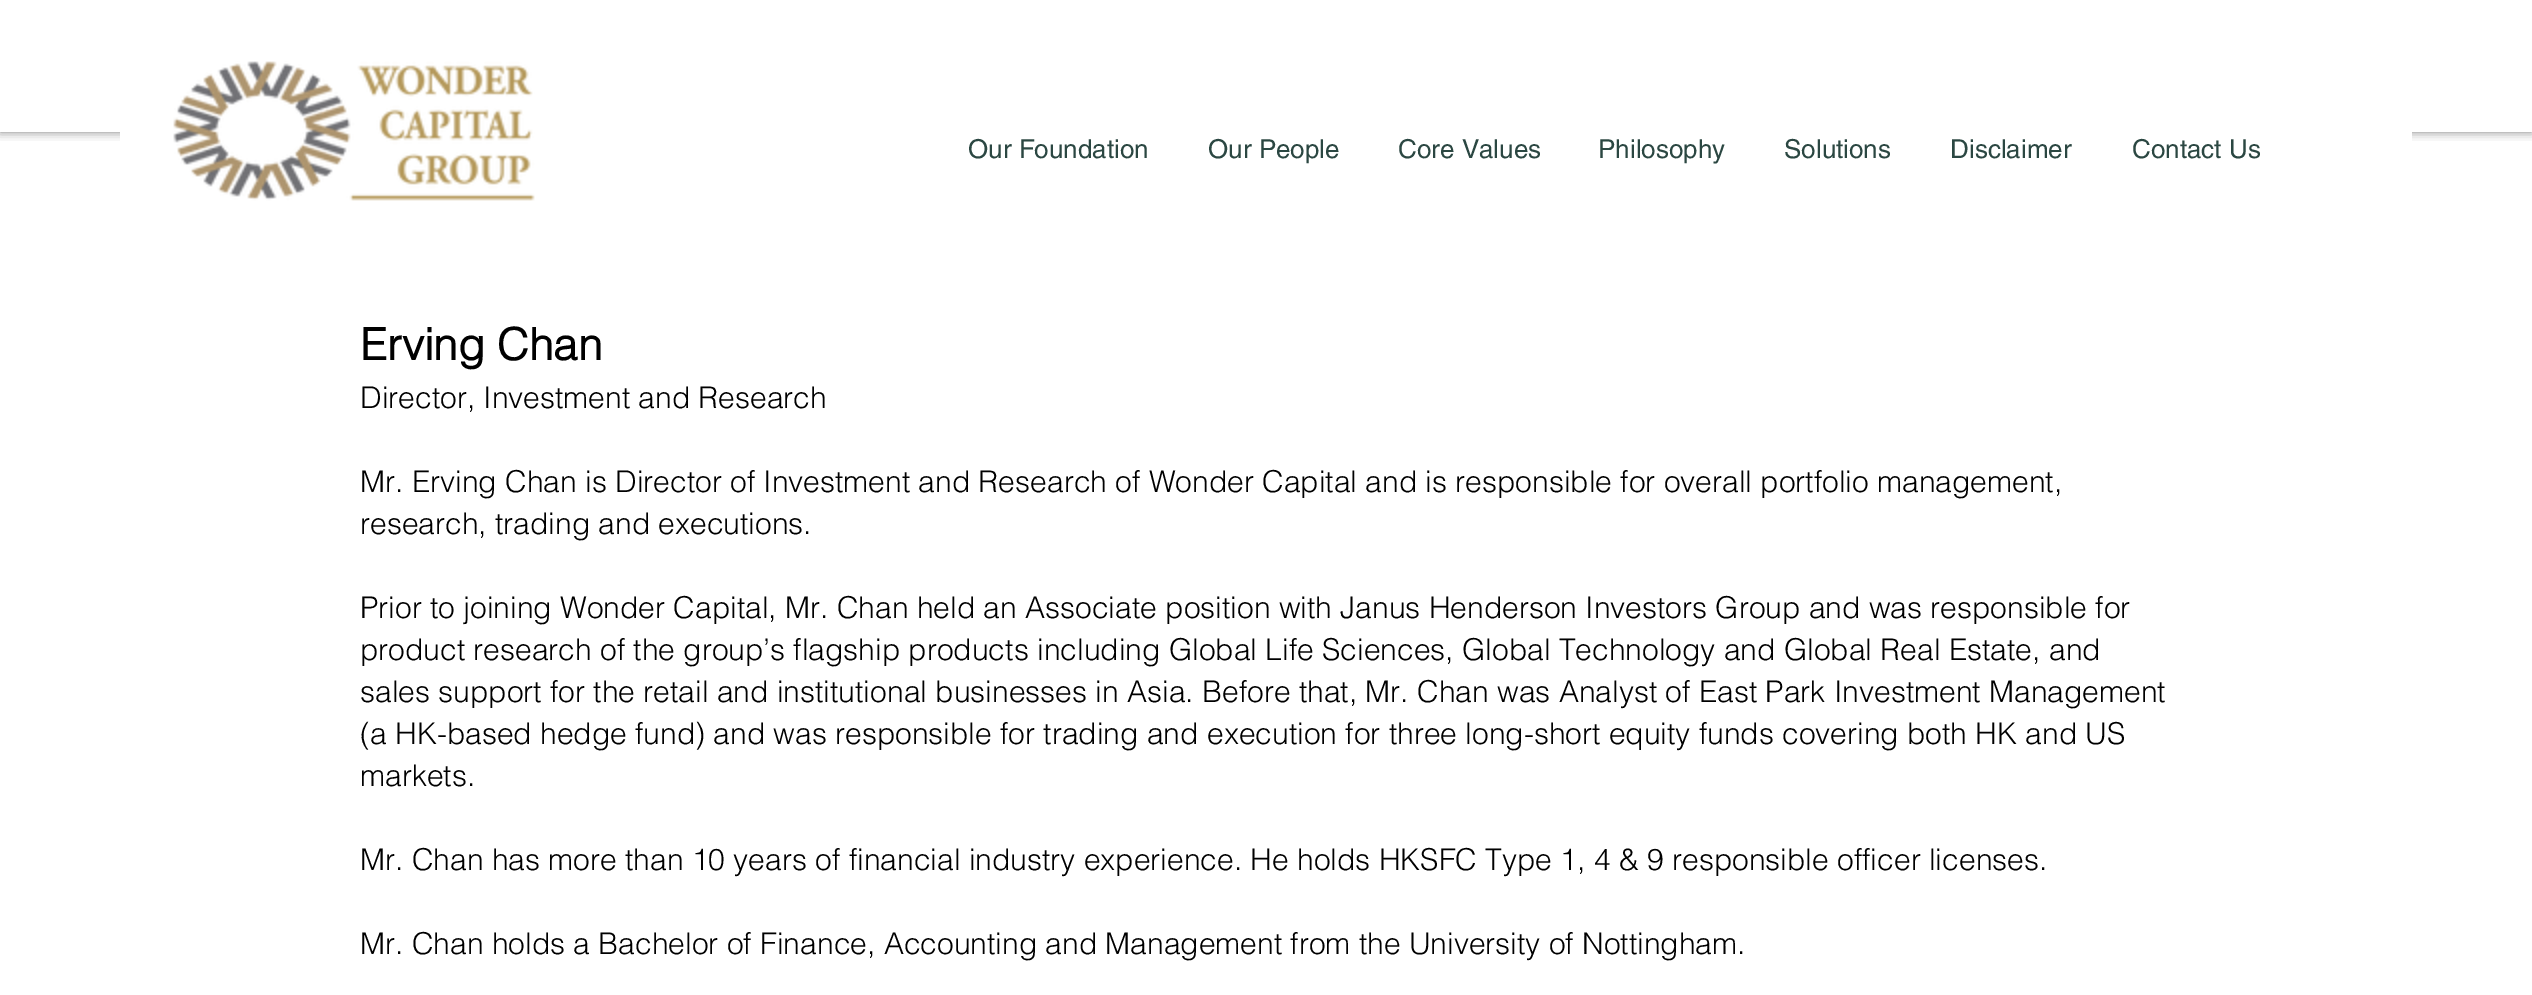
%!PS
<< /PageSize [2532 995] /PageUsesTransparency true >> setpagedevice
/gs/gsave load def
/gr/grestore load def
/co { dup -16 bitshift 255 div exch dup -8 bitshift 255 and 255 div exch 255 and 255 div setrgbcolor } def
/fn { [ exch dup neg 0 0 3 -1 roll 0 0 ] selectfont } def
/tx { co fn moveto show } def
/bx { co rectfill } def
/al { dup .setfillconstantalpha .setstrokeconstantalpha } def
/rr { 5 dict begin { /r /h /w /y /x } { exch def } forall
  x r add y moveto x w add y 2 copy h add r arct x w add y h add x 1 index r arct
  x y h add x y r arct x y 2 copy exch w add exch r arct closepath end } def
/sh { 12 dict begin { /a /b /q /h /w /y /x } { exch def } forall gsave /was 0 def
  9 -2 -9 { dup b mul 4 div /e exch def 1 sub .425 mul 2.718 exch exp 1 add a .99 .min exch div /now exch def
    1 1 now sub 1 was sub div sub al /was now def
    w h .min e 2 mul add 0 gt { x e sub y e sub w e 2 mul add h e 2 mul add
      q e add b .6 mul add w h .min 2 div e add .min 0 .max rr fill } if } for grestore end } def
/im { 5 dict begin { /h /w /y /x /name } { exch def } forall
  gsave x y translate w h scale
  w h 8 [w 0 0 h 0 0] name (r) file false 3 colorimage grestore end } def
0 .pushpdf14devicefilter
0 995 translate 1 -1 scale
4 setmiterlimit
0 0 2532 995 16#FFFFFF bx
gs
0 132 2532 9 rectclip
16#000000 co
0 0 2532 132 0 5 .5 sh
gr
120 132 2292 10 16#FFFFFF bx
(media/1.raw) 173 61 362 140 im
(Our Foundation) 968 158 /helvetica-Regular 26 16#2B4742 tx
(Our People) 1208 158 /helvetica-Regular 26 16#2B4742 tx
(Core Values) 1398 158 /helvetica-Regular 26 16#2B4742 tx
(Philosophy) 1598 158 /helvetica-Regular 26 16#2B4742 tx
(Solutions) 1784 158 /helvetica-Regular 26 16#2B4742 tx
(Disclaimer) 1950 158 /helvetica-Regular 26 16#2B4742 tx
(Contact Us) 2132 158 /helvetica-Regular 26 16#2B4742 tx
(Erving Chan) 360 360 /helvetica-Bold 44 16#000000 tx
(Director, Investment and Research) 360 408 /helvetica-Light 30 16#000000 tx
(Mr. Erving Chan is Director of Investment and Research of Wonder Capital and is responsible for overall portfolio management,) 360 492 /helvetica-Light 30 16#000000 tx
(research, trading and executions.) 360 534 /helvetica-Light 30 16#000000 tx
(Prior to joining Wonder Capital, Mr. Chan held an Associate position with Janus Henderson Investors Group and was responsible for) 360 618 /helvetica-Light 30 16#000000 tx
(product research of the group’s flagship products including Global Life Sciences, Global Technology and Global Real Estate, and) 360 660 /helvetica-Light 30 16#000000 tx
(sales support for the retail and institutional businesses in Asia. Before that, Mr. Chan was Analyst of East Park Investment Management) 360 702 /helvetica-Light 30 16#000000 tx
(\(a HK-based hedge fund\) and was responsible for trading and execution for three long-short equity funds covering both HK and US) 360 744 /helvetica-Light 30 16#000000 tx
(markets.) 360 786 /helvetica-Light 30 16#000000 tx
(Mr. Chan has more than 10 years of financial industry experience. He holds HKSFC Type 1, 4 & 9 responsible officer licenses.) 360 870 /helvetica-Light 30 16#000000 tx
(Mr. Chan holds a Bachelor of Finance, Accounting and Management from the University of Nottingham.) 360 954 /helvetica-Light 30 16#000000 tx
.poppdf14devicefilter showpage
